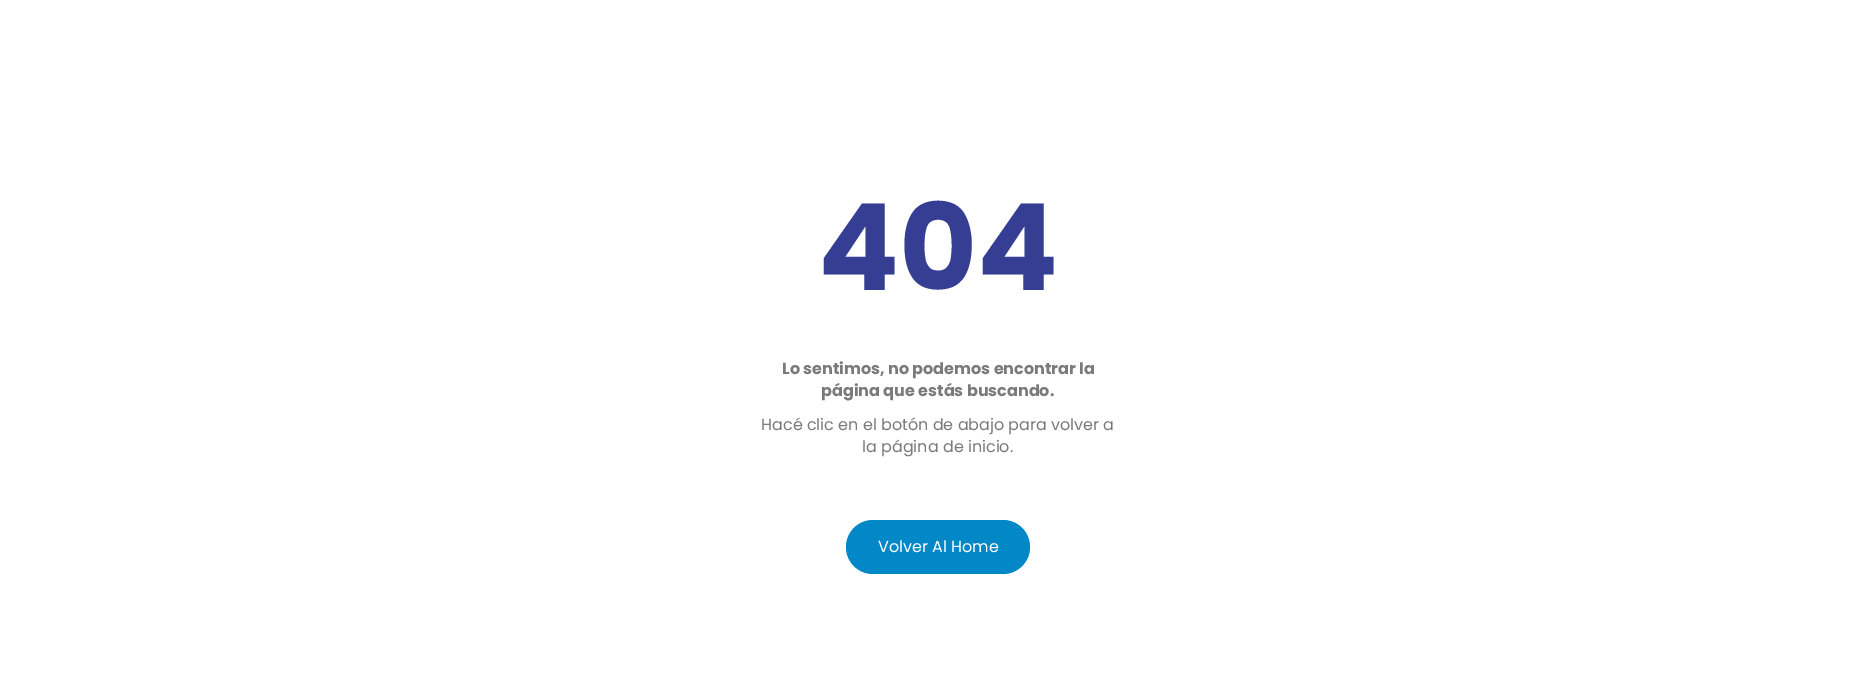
%!PS
<< /PageSize [1876 675] >> setpagedevice
/fl/fill load def
/co { dup -16 bitshift 255 div exch dup -8 bitshift 255 and 255 div exch 255 and 255 div setrgbcolor } def
/fn { [ exch dup neg 0 0 3 -1 roll 0 0 ] selectfont } def
/tx { co fn moveto show } def
/bx { co rectfill } def
/rr { 5 dict begin { /r /h /w /y /x } { exch def } forall
  x r add y moveto x w add y 2 copy h add r arct x w add y h add x 1 index r arct
  x y h add x y r arct x y 2 copy exch w add exch r arct closepath end } def
0 675 translate 1 -1 scale
4 setmiterlimit
0 0 1876 675 16#FFFFFF bx
16#0287C7 co
846 520 184 54 27 rr fl
(404) 818 290 /Poppins-Bold 120 16#353E92 tx
(Lo sentimos, no podemos encontrar la) 782 374 /Poppins-Bold 16 16#7A7A7A tx
(página que estás buscando.) 821 396 /Poppins-Bold 16 16#7A7A7A tx
(Hacé clic en el botón de abajo para volver a) 761 430 /Poppins-Regular 16 16#7A7A7A tx
(la página de inicio.) 862 452 /Poppins-Regular 16 16#7A7A7A tx
(Volver Al Home) 878 552 /Poppins-Regular 16 16#FFFFFF tx
showpage
